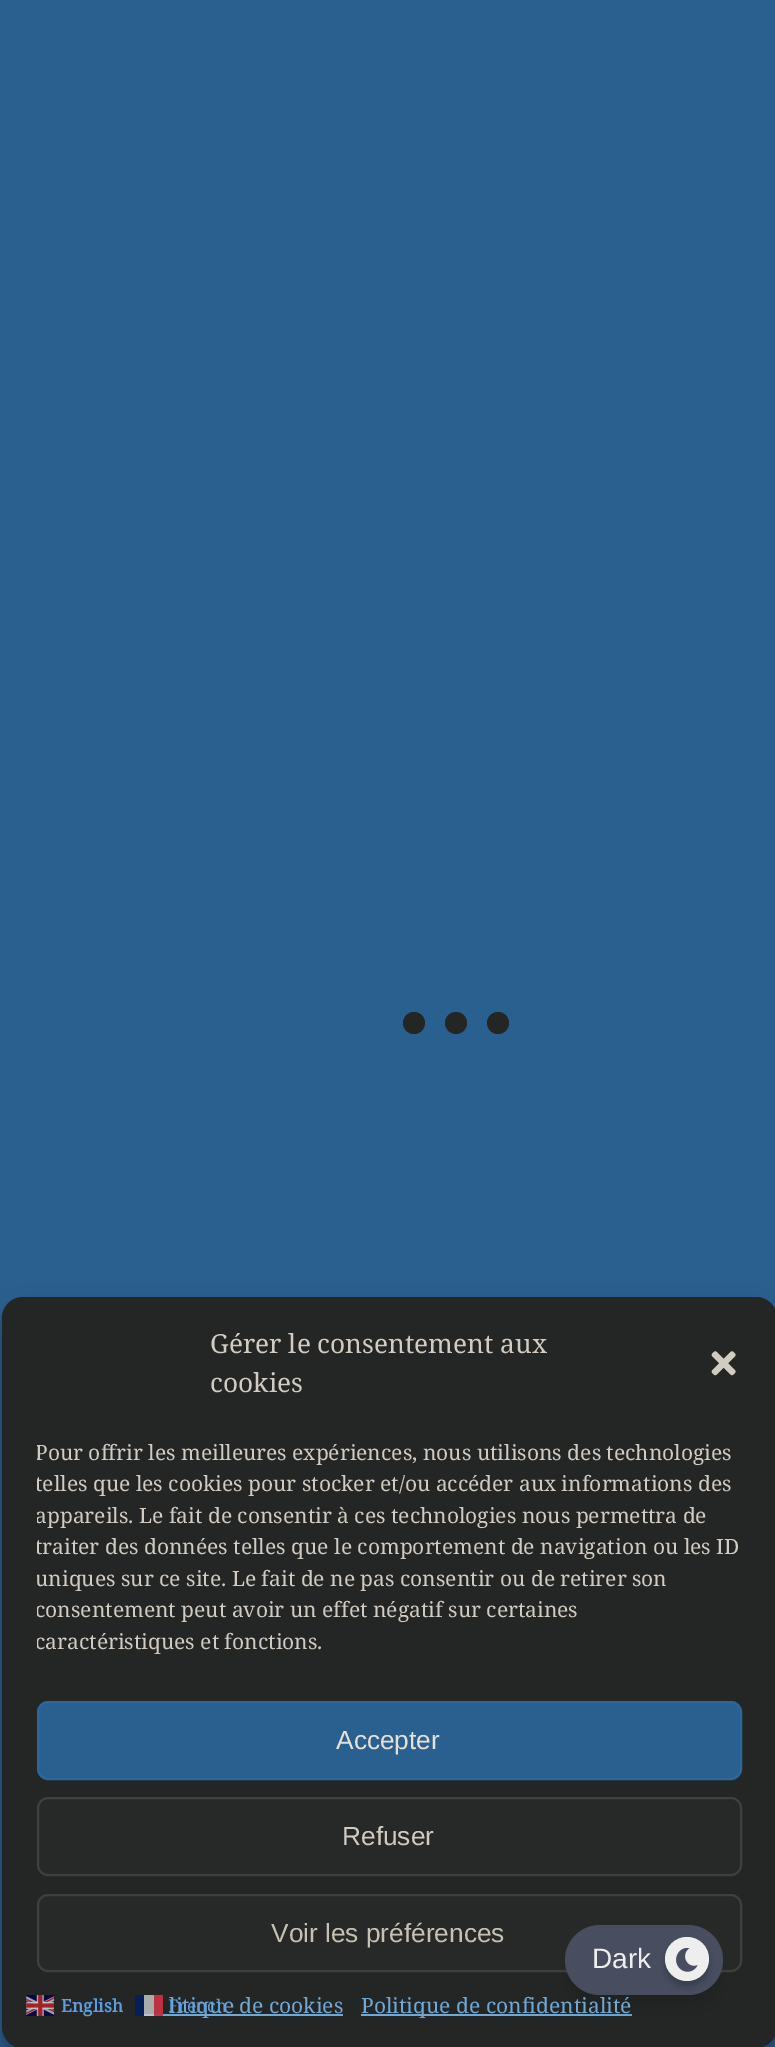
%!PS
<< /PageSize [775 2047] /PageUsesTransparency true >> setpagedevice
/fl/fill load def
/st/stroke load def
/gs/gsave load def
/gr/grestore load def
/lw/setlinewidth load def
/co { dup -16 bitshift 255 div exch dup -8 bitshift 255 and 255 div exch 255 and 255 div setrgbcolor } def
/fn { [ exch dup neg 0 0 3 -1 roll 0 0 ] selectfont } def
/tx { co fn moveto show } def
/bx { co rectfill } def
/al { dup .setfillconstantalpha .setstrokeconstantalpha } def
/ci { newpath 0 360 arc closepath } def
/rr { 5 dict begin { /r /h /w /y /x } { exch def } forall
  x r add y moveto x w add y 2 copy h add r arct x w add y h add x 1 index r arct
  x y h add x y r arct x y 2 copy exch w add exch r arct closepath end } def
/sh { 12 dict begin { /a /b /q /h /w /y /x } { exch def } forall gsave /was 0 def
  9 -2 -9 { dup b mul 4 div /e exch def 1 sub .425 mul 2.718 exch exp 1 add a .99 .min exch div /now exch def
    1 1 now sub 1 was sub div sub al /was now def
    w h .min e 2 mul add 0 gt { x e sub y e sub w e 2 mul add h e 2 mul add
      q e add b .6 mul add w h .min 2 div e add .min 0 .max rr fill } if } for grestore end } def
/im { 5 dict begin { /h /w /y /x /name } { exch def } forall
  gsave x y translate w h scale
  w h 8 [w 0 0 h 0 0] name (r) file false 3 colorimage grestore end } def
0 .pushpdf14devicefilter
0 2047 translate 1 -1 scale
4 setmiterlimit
0 0 775 2047 16#2A608F bx
16#242525 co
414 1023 11 ci fl
456 1023 11 ci fl
498 1023 11 ci fl
16#0D0D0D co
2 1307 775 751 21 5 .23 sh
2 1314 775 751 21 17.5 .19 sh
16#242525 co
2 1297 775 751 21 rr fl
(media/1.raw) 711 1351 25 25 im
16#2A608F co
38 1702 703 77 10 rr gs fl gr
16#2D6798 co
2 lw
st
16#272828 co
38 1798 703 77 10 rr gs fl gr
16#3E4040 co
st
16#272828 co
38 1895 703 76 10 rr gs fl gr
16#3E4040 co
st
144 2014 199 2 16#6FA9D4 bx
361 2014 271 2 16#6FA9D4 bx
16#000000 co
571 1948 147 59 29.5 13 .1 sh
16#484D60 co
565 1925 158 70 35 rr fl
16#000000 co
665 1943 44 43 21.5 3 .2 sh
16#EEEEEE co
687 1959 22 ci fl
(media/2.raw) 676 1948 22 24 im
(media/3.raw) 26 1995 28 21 im
0.8 al
144 1995 19 21 16#CCCCCC bx
1 al
135 1995 9 21 16#071F59 bx
0.8 al
154 1995 9 21 16#C21326 bx
1 al
(Gérer le consentement aux) 210 1353 /NotoSerif-Regular 26.25 16#D1CBC1 tx
(cookies) 210 1392 /NotoSerif-Regular 26.25 16#D1CBC1 tx
gs
37 1437 705 229 rectclip
(Pour offrir les meilleures expériences, nous utilisons des technologies) 35 1460 /NotoSerif-Regular 21 16#D1CBC1 tx
(telles que les cookies pour stocker et/ou accéder aux informations des) 35 1491 /NotoSerif-Regular 21 16#D1CBC1 tx
(appareils. Le fait de consentir à ces technologies nous permettra de) 35 1523 /NotoSerif-Regular 21 16#D1CBC1 tx
(traiter des données telles que le comportement de navigation ou les ID) 35 1554 /NotoSerif-Regular 21 16#D1CBC1 tx
(uniques sur ce site. Le fait de ne pas consentir ou de retirer son) 35 1586 /NotoSerif-Regular 21 16#D1CBC1 tx
(consentement peut avoir un effet négatif sur certaines) 35 1617 /NotoSerif-Regular 21 16#D1CBC1 tx
(caractéristiques et fonctions.) 35 1649 /NotoSerif-Regular 21 16#D1CBC1 tx
gr
(Accepter) 336 1749 /LiberationSans-Regular 26.25 16#E5E0D8 tx
(Refuser) 342 1845 /LiberationSans-Regular 26.25 16#D1CBC1 tx
(Voir les préférences) 271 1942 /LiberationSans-Regular 26.25 16#C7C0B5 tx
(litique de cookies) 169 2013 /NotoSerif-Regular 21 16#6FA9D4 tx
(Politique de confidentialité) 361 2013 /NotoSerif-Regular 21 16#6FA9D4 tx
(Dark) 592 1968 /LiberationSans-Regular 28 16#EEEEEE tx
(English) 61 2012 /NotoSerif-Bold 17.5 16#5D9EE1 tx
(French) 168 2012 /NotoSerif-Regular 17.5 16#5D9EE1 tx
.poppdf14devicefilter showpage
